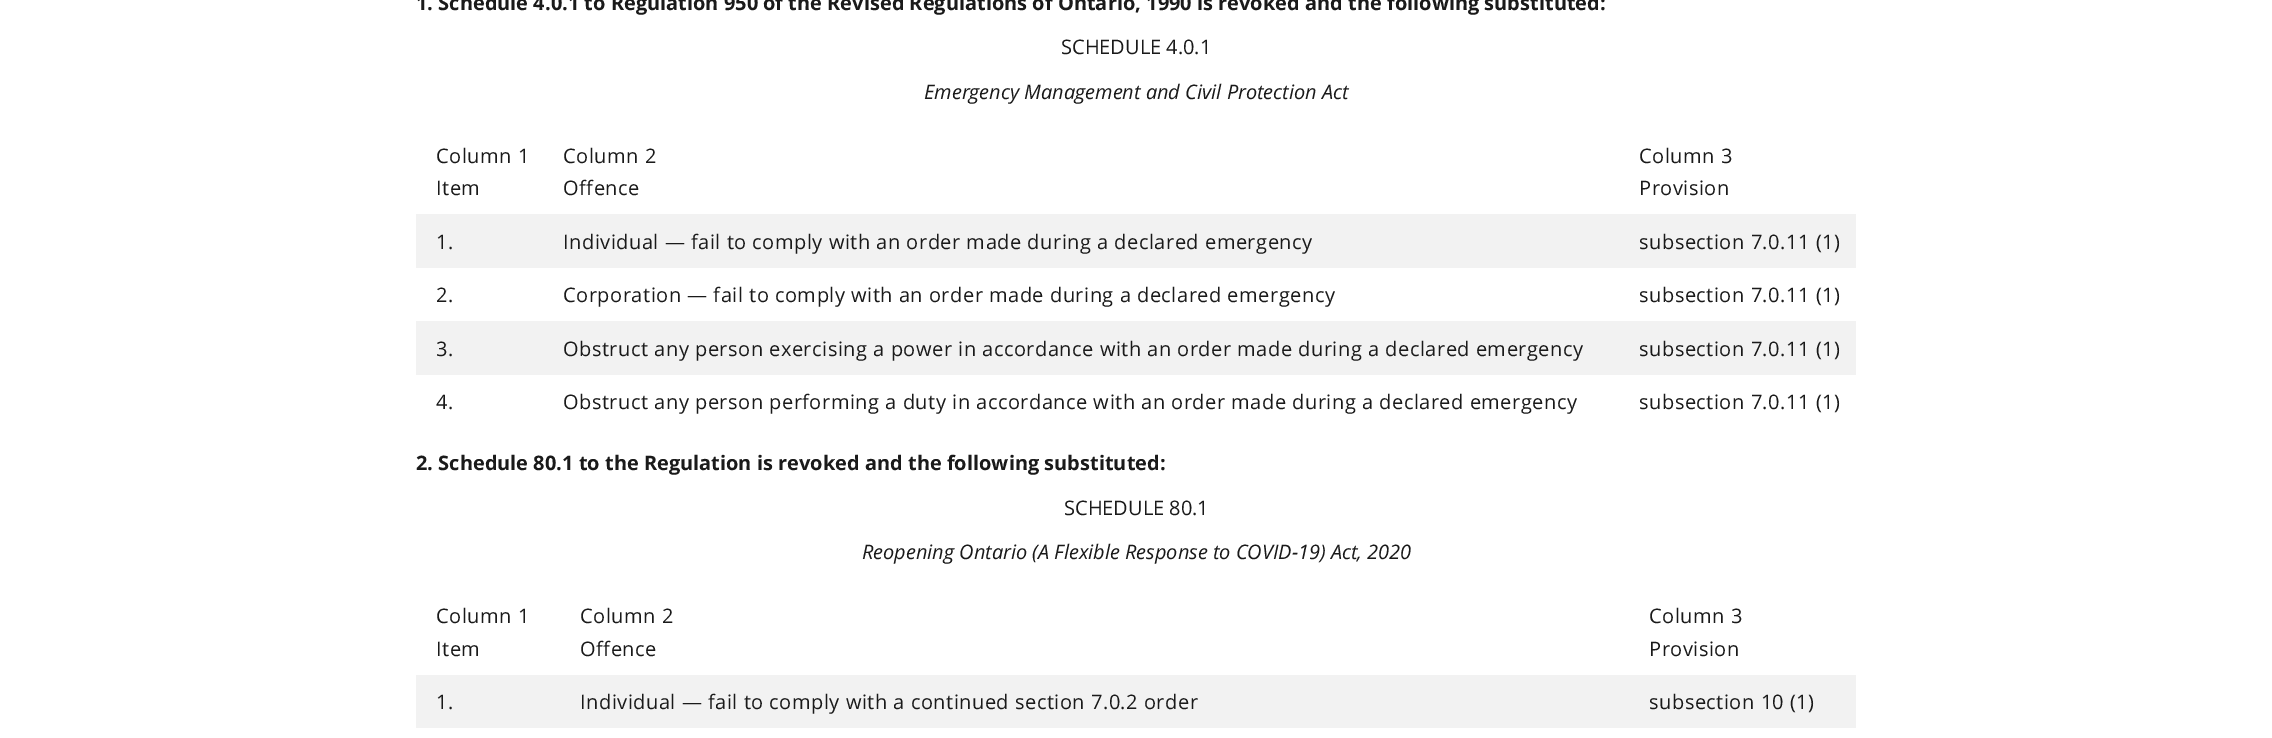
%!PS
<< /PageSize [2272 738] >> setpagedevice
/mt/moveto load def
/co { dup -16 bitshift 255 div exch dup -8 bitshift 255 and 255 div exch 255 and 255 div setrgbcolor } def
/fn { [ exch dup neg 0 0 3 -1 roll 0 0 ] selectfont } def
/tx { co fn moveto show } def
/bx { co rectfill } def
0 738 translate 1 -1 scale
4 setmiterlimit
0 0 2272 738 16#FFFFFF bx
416 214 1440 54 16#F2F2F2 bx
416 321 1440 54 16#F2F2F2 bx
416 675 1440 53 16#F2F2F2 bx
(1. Schedule 4.0.1 to Regulation 950 of the Revised Regulations of Ontario, 1990 is revoked and the following substituted:) 416 10 /OpenSans-Bold 20 16#1A1A1A tx
(SCHEDULE 4.0.1) 1061 54 /OpenSans-Regular 20 16#1A1A1A tx
(Emergency Management and Civil Protection Act) 924 99 /OpenSans-Italic 20 16#1A1A1A tx
/OpenSans-Regular 20 fn
436 163 mt .5 0 (Column 1) ashow
436 195 mt .5 0 (Item) ashow
563 163 mt .5 0 (Column 2) ashow
563 195 mt .5 0 (Offence) ashow
1639 163 mt .5 0 (Column 3) ashow
1639 195 mt .5 0 (Provision) ashow
436 249 mt .5 0 (1.) ashow
563 249 mt .5 0 (Individual — fail to comply with an order made during a declared emergency) ashow
1639 249 mt .5 0 (subsection 7.0.11 \(1\)) ashow
436 302 mt .5 0 (2.) ashow
563 302 mt .5 0 (Corporation — fail to comply with an order made during a declared emergency) ashow
1639 302 mt .5 0 (subsection 7.0.11 \(1\)) ashow
436 356 mt .5 0 (3.) ashow
563 356 mt .5 0 (Obstruct any person exercising a power in accordance with an order made during a declared emergency) ashow
1639 356 mt .5 0 (subsection 7.0.11 \(1\)) ashow
436 409 mt .5 0 (4.) ashow
563 409 mt .5 0 (Obstruct any person performing a duty in accordance with an order made during a declared emergency) ashow
1639 409 mt .5 0 (subsection 7.0.11 \(1\)) ashow
(2. Schedule 80.1 to the Regulation is revoked and the following substituted:) 416 470 /OpenSans-Bold 20 16#1A1A1A tx
(SCHEDULE 80.1) 1064 515 /OpenSans-Regular 20 16#1A1A1A tx
(Reopening Ontario \(A Flexible Response to COVID-19\) Act, 2020) 862 559 /OpenSans-Italic 20 16#1A1A1A tx
/OpenSans-Regular 20 fn
436 623 mt .5 0 (Column 1) ashow
436 656 mt .5 0 (Item) ashow
580 623 mt .5 0 (Column 2) ashow
580 656 mt .5 0 (Offence) ashow
1649 623 mt .5 0 (Column 3) ashow
1649 656 mt .5 0 (Provision) ashow
436 709 mt .5 0 (1.) ashow
580 709 mt .5 0 (Individual — fail to comply with a continued section 7.0.2 order) ashow
1649 709 mt .5 0 (subsection 10 \(1\)) ashow
showpage
